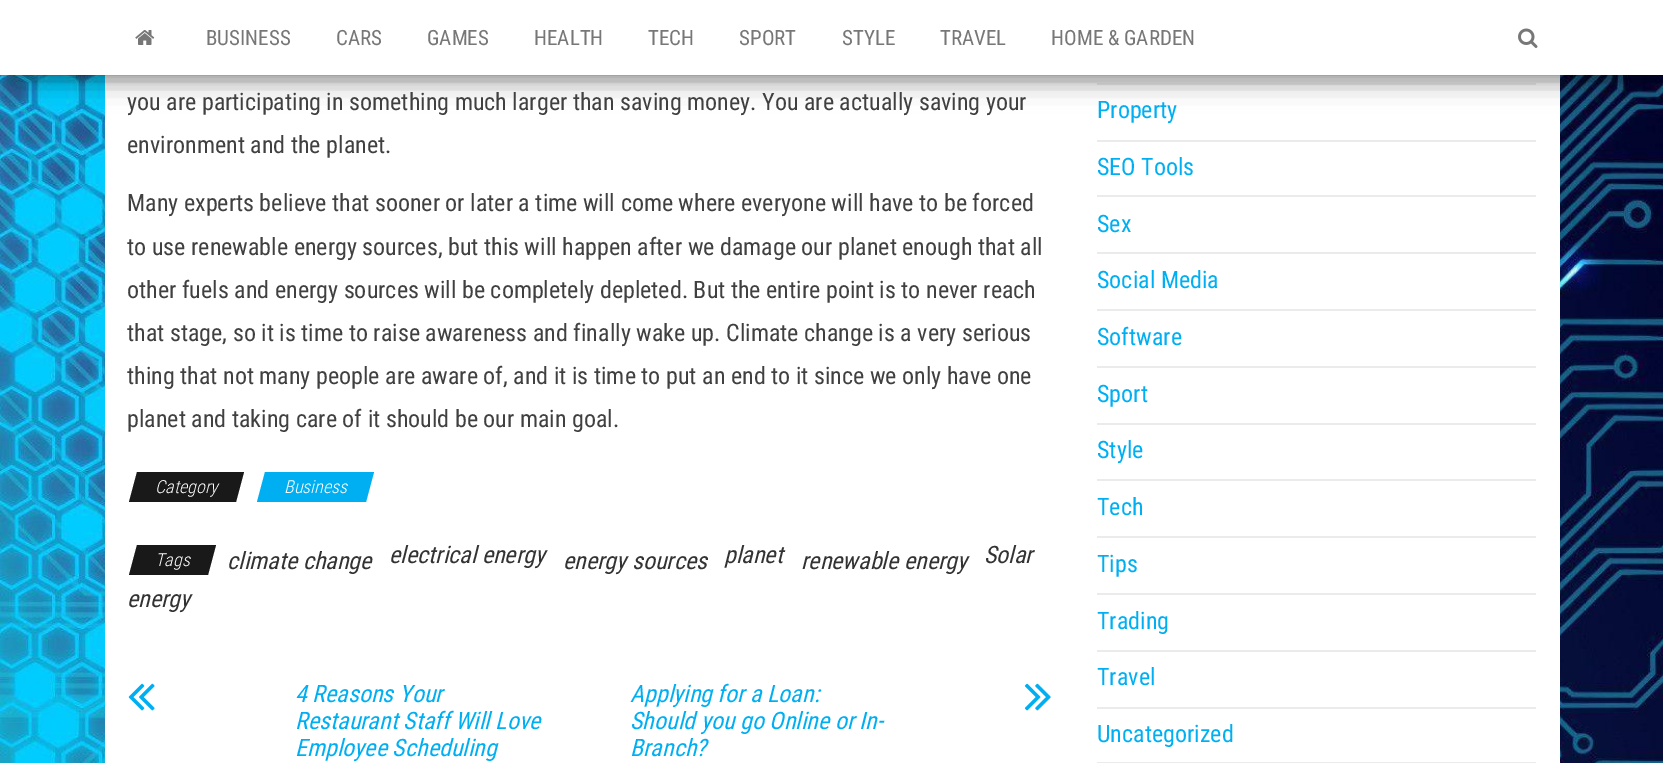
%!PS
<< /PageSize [1663 763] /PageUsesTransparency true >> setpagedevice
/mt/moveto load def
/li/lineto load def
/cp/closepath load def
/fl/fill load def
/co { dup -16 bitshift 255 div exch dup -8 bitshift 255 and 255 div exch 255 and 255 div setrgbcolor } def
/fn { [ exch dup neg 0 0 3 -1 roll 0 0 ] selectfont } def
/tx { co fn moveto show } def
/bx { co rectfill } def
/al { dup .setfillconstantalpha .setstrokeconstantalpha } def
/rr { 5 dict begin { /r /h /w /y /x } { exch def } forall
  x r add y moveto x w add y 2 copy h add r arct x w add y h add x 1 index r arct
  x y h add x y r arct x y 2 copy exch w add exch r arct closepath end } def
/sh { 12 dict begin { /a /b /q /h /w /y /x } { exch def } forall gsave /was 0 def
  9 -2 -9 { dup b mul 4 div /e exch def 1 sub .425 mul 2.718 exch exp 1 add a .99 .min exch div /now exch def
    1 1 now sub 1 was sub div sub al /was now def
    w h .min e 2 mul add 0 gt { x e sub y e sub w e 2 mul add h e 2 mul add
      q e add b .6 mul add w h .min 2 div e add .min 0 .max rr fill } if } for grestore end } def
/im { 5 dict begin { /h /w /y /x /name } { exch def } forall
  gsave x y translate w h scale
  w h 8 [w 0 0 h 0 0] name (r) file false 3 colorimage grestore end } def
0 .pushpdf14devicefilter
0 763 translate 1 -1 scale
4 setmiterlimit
0 0 1663 763 16#FFFFFF bx
(media/1.raw) 0 75 1663 688 im
105 75 1455 688 16#FFFFFF bx
1097 83 439 2 16#EBEBEB bx
16#000000 co
8 20 1648 60 0 7.5 .2 sh
0 5 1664 75 0 15 .12 sh
18 33 1628 39 0 15 .42 sh
0 0 1663 75 16#FFFFFF bx
(media/2.raw) 135 30 20 15 im
(media/3.raw) 1518 28 20 20 im
16#191919 co
137 472 mt 244 472 li 236 502 li 129 502 li cp fl
16#00AFF2 co
265 472 mt 374 472 li 366 502 li 257 502 li cp fl
16#191919 co
137 545 mt 216 545 li 208 575 li 129 575 li cp fl
(media/4.raw) 128 683 27 28 im
(media/5.raw) 1024 683 27 28 im
1097 140 439 2 16#EBEBEB bx
1097 195 439 2 16#EBEBEB bx
1097 252 439 2 16#EBEBEB bx
1097 309 439 2 16#EBEBEB bx
1097 366 439 2 16#EBEBEB bx
1097 423 439 2 16#EBEBEB bx
1097 479 439 2 16#EBEBEB bx
1097 536 439 2 16#EBEBEB bx
1097 593 439 2 16#EBEBEB bx
1097 650 439 2 16#EBEBEB bx
1097 707 439 2 16#EBEBEB bx
1097 762 439 1 16#EBEBEB bx
(BUSINESS) 206 45 /RobotoCondensed-Regular 21 16#777777 tx
(CARS) 336 45 /RobotoCondensed-Regular 21 16#777777 tx
(GAMES) 427 45 /RobotoCondensed-Regular 21 16#777777 tx
(HEALTH) 534 45 /RobotoCondensed-Regular 21 16#777777 tx
(TECH) 648 45 /RobotoCondensed-Regular 21 16#777777 tx
(SPORT) 739 45 /RobotoCondensed-Regular 21 16#777777 tx
(STYLE) 842 45 /RobotoCondensed-Regular 21 16#777777 tx
(TRAVEL) 940 45 /RobotoCondensed-Regular 21 16#777777 tx
(HOME & GARDEN) 1051 45 /RobotoCondensed-Regular 21 16#777777 tx
(you are participating in something much larger than saving money. You are actually saving your) 127 110 /RobotoCondensed-Regular 24 16#404040 tx
(environment and the planet.) 127 153 /RobotoCondensed-Regular 24 16#404040 tx
(Many experts believe that sooner or later a time will come where everyone will have to be forced) 127 211 /RobotoCondensed-Regular 24 16#404040 tx
(to use renewable energy sources, but this will happen after we damage our planet enough that all) 127 255 /RobotoCondensed-Regular 24 16#404040 tx
(other fuels and energy sources will be completely depleted. But the entire point is to never reach) 127 298 /RobotoCondensed-Regular 24 16#404040 tx
(that stage, so it is time to raise awareness and finally wake up. Climate change is a very serious) 127 341 /RobotoCondensed-Regular 24 16#404040 tx
(thing that not many people are aware of, and it is time to put an end to it since we only have one) 127 384 /RobotoCondensed-Regular 24 16#404040 tx
(planet and taking care of it should be our main goal.) 127 427 /RobotoCondensed-Regular 24 16#404040 tx
(Category) 155 493 /RobotoCondensed-LightItalic 18 16#FFFFFF tx
(Business) 284 493 /RobotoCondensed-LightItalic 18 16#FFFFFF tx
(Tags) 155 566 /RobotoCondensed-LightItalic 18 16#FFFFFF tx
(climate change) 227 569 /RobotoCondensed-Italic 24 16#333333 tx
(electrical energy) 389 563 /RobotoCondensed-Italic 24 16#333333 tx
(energy sources) 563 569 /RobotoCondensed-Italic 24 16#333333 tx
(planet) 724 563 /RobotoCondensed-Italic 24 16#333333 tx
(renewable energy) 801 569 /RobotoCondensed-Italic 24 16#333333 tx
(Solar) 984 563 /RobotoCondensed-Italic 24 16#333333 tx
(energy) 127 607 /RobotoCondensed-Italic 24 16#333333 tx
(4 Reasons Your) 295 702 /RobotoCondensed-Italic 24 16#00AFF2 tx
(Restaurant Staff Will Love) 295 729 /RobotoCondensed-Italic 24 16#00AFF2 tx
(Employee Scheduling) 295 756 /RobotoCondensed-Italic 24 16#00AFF2 tx
(Applying for a Loan:) 630 702 /RobotoCondensed-Italic 24 16#00AFF2 tx
(Should you go Online or In-) 630 729 /RobotoCondensed-Italic 24 16#00AFF2 tx
(Branch?) 630 756 /RobotoCondensed-Italic 24 16#00AFF2 tx
(Property) 1097 118 /RobotoCondensed-Regular 24 16#00AFF2 tx
(SEO Tools) 1097 175 /RobotoCondensed-Regular 24 16#00AFF2 tx
(Sex) 1097 232 /RobotoCondensed-Regular 24 16#00AFF2 tx
(Social Media) 1097 288 /RobotoCondensed-Regular 24 16#00AFF2 tx
(Software) 1097 345 /RobotoCondensed-Regular 24 16#00AFF2 tx
(Sport) 1097 402 /RobotoCondensed-Regular 24 16#00AFF2 tx
(Style) 1097 458 /RobotoCondensed-Regular 24 16#00AFF2 tx
(Tech) 1097 515 /RobotoCondensed-Regular 24 16#00AFF2 tx
(Tips) 1097 572 /RobotoCondensed-Regular 24 16#00AFF2 tx
(Trading) 1097 629 /RobotoCondensed-Regular 24 16#00AFF2 tx
(Travel) 1097 685 /RobotoCondensed-Regular 24 16#00AFF2 tx
(Uncategorized) 1097 742 /RobotoCondensed-Regular 24 16#00AFF2 tx
.poppdf14devicefilter showpage
